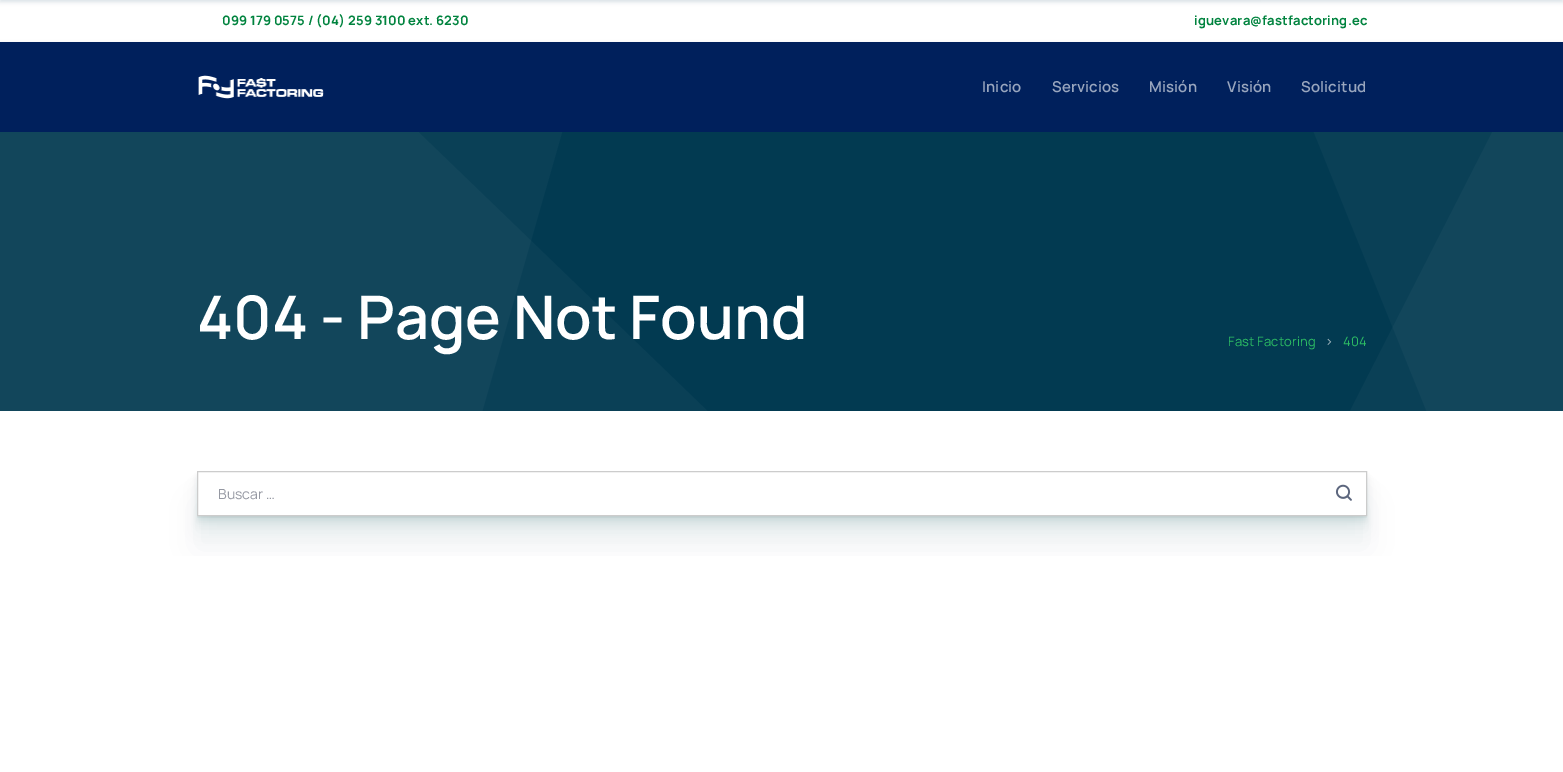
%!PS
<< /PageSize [1563 772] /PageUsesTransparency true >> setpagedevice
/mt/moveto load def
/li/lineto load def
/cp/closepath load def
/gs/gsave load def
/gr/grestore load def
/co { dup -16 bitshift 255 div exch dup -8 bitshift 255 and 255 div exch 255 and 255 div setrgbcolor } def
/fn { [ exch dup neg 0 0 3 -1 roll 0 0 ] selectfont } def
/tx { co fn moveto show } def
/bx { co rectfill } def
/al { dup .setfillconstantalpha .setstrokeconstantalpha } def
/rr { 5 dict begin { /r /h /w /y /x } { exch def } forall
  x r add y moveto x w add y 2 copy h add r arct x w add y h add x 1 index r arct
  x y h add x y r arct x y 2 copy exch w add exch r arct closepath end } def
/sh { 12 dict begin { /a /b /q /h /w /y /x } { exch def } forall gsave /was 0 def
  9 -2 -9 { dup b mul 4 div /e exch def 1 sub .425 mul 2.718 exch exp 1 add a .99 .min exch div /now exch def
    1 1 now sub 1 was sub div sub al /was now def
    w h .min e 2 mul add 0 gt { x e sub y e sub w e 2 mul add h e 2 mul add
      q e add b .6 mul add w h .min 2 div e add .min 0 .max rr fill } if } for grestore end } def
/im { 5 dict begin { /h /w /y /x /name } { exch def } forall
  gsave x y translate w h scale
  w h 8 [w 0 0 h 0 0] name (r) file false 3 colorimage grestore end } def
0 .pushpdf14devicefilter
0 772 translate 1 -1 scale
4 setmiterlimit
0 0 1563 772 16#FFFFFF bx
16#023A51 co
0 -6 1563 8 0 2 .15 sh
418 132 1075 279 16#023A51 bx
gs
0 42 1563 369 rectclip
16#0A4056 co
-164 -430 mt 952 647 li -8 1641 li -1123 564 li cp eofill
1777 -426 mt 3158 278 li 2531 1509 li 1149 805 li cp eofill
gr
0.03 al
16#FFFFFF co
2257 -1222 mt 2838 216 li 1557 734 li 976 -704 li cp eofill
-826 -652 mt 664 -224 li 284 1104 li -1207 676 li cp eofill
1 al
16#023A51 co
0 44 1563 90 0 2 .15 sh
0 42 1563 90 16#00205C bx
(media/1.raw) 198 75 126 24 im
gs
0 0 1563 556 rectclip
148 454 mt 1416 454 li 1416 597 li 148 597 li cp 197 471 mt 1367 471 li 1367 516 li 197 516 li cp eoclip newpath
16#023A51 co
197 503 1170 45 0 16 .06 sh
gr
gs
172 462 mt 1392 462 li 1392 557 li 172 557 li cp 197 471 mt 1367 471 li 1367 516 li 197 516 li cp eoclip newpath
16#023A51 co
197 487 1170 45 0 8 .06 sh
gr
gs
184 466 mt 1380 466 li 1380 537 li 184 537 li cp 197 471 mt 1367 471 li 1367 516 li 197 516 li cp eoclip newpath
16#023A51 co
197 479 1170 45 0 4 .06 sh
gr
gs
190 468 mt 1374 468 li 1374 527 li 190 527 li cp 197 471 mt 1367 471 li 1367 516 li 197 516 li cp eoclip newpath
16#023A51 co
197 475 1170 45 0 2 .06 sh
gr
gs
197 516 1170 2 rectclip
16#023A51 co
197 473 1170 45 0 1 .06 sh
gr
16#CCCCCC co
197.5 471.5 1169 44 rectstroke
(media/2.raw) 1335 484 17 17 im
/Manrope-Bold 13 fn
16#00833E co
222 25 mt .15 0 (099 179 0575 / \(04\) 259 3100 ext. 6230) ashow
1194 25 mt .15 0 (iguevara@fastfactoring.ec) ashow
/Manrope-SemiBold 15 fn
16#99A6BE co
982 92 mt .15 0 (Inicio) ashow
1052 92 mt .15 0 (Servicios) ashow
1149 92 mt .15 0 (Misión) ashow
1227 92 mt .15 0 (Visión) ashow
1301 92 mt .15 0 (Solicitud) ashow
(404 - Page Not Found) 197 339 /Manrope-SemiBold 60 16#FFFFFF tx
/Manrope-Regular 13 fn
16#2CBC63 co
1228 346 mt .15 0 (Fast Factoring) ashow
16#A6BAC2 co
1325 346 mt .15 0 (>) ashow
16#2CBC63 co
1343 346 mt .15 0 (404) ashow
(Buscar …) 218 499 /Manrope-Regular 14 16#9598A2 tx
.poppdf14devicefilter showpage
